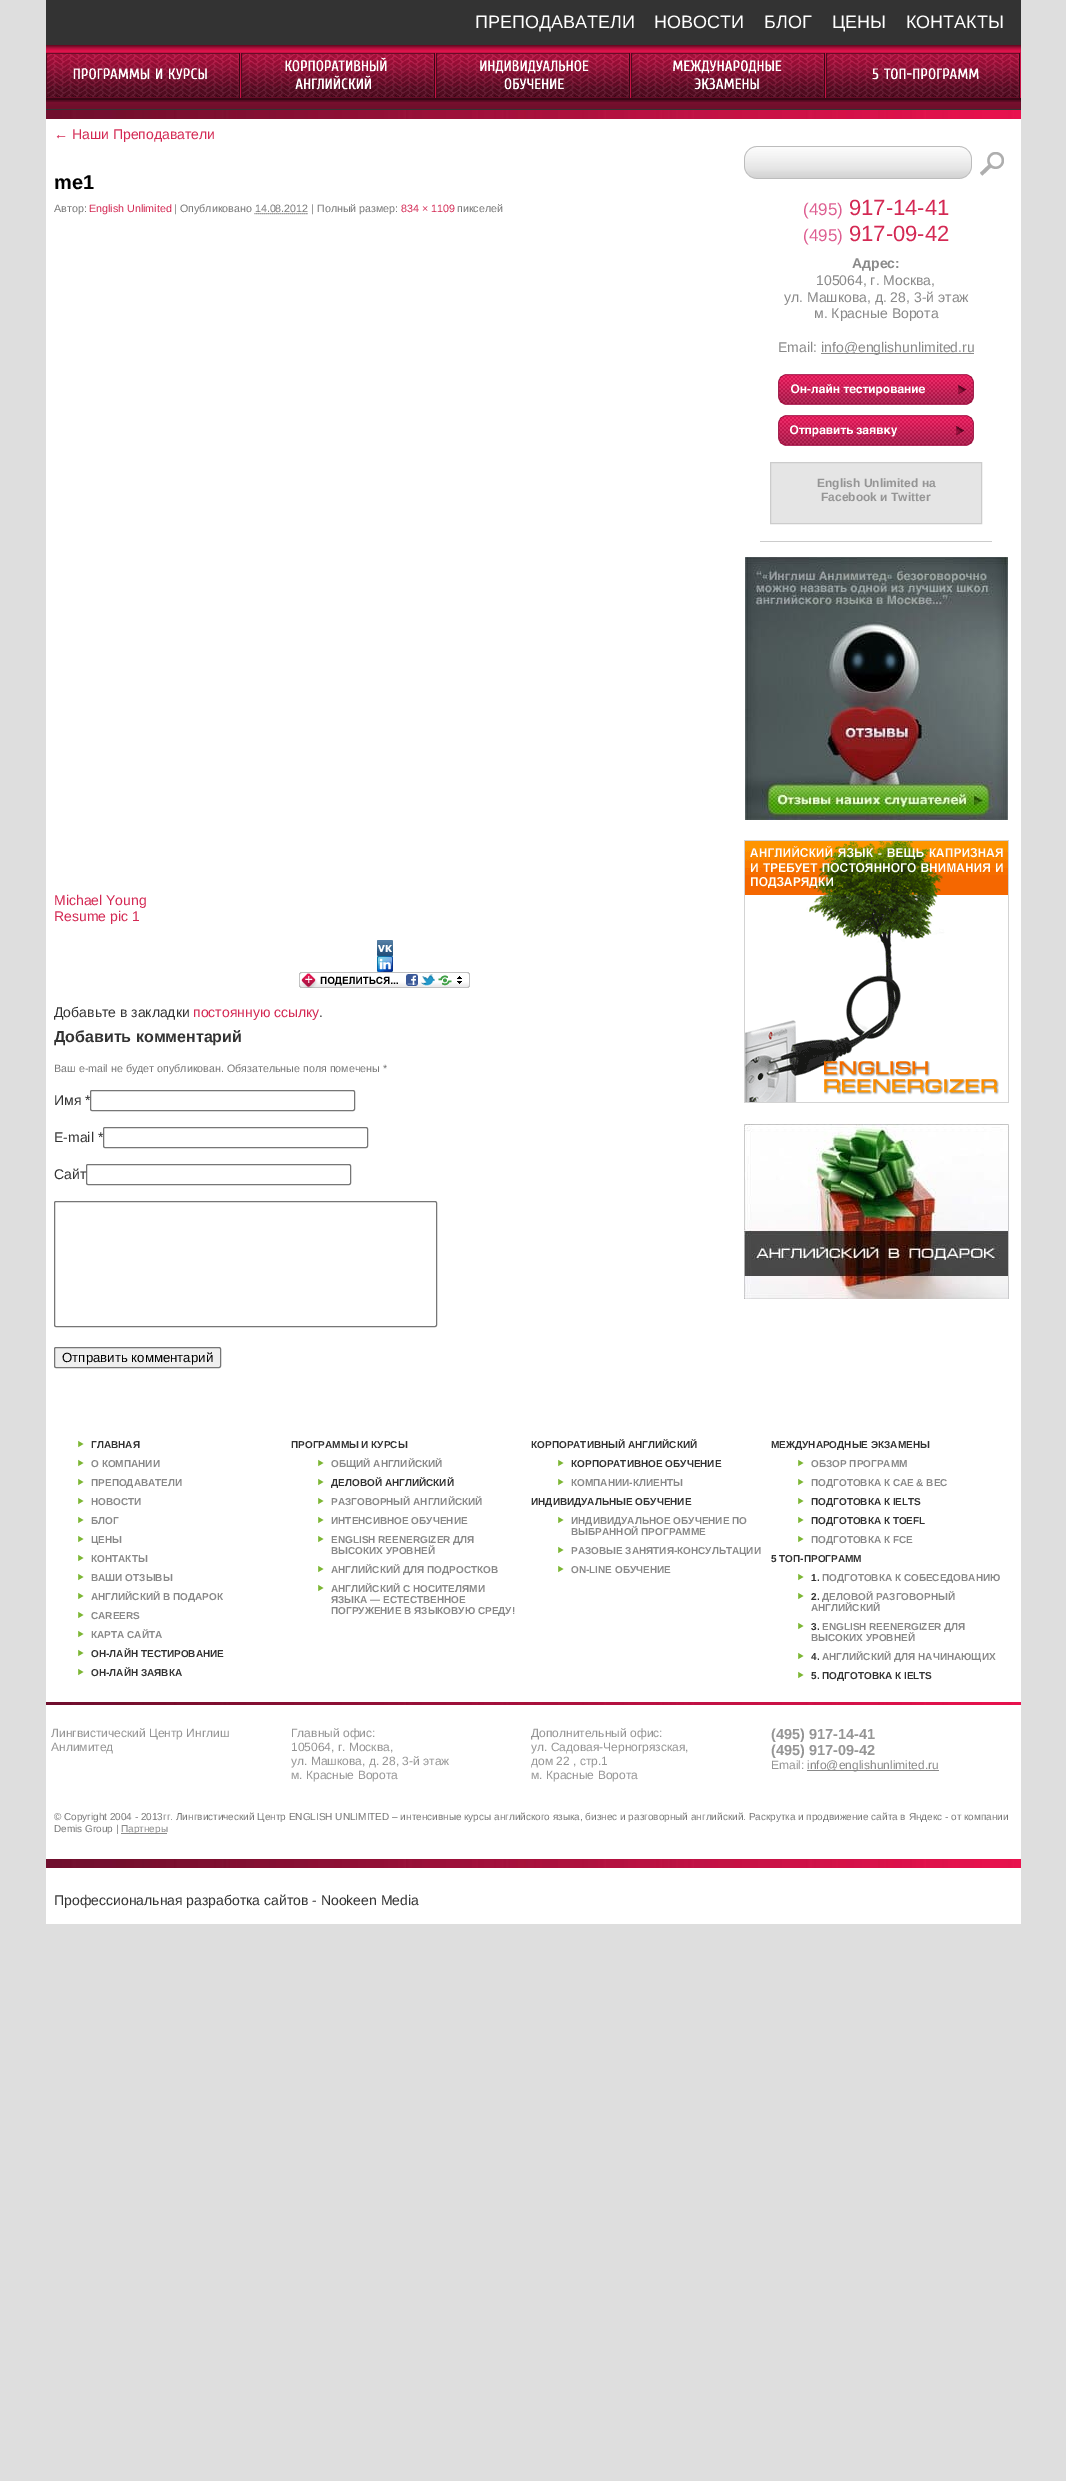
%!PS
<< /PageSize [1066 2481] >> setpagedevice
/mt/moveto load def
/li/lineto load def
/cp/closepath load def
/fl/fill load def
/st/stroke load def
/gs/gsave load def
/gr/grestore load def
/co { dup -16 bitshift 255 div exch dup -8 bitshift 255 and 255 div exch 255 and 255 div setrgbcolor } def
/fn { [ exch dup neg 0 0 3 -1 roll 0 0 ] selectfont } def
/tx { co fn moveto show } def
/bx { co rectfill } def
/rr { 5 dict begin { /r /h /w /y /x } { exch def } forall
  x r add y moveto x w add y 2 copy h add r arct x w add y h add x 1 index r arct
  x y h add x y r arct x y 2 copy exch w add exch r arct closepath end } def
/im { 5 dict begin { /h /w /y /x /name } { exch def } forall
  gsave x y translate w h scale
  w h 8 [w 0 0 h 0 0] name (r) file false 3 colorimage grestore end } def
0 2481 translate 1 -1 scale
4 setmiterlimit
0 0 1066 2481 16#DEDEDE bx
46 119 975 1805 16#FFFFFF bx
46 0 975 110 16#333333 bx
(media/1.raw) 46 45 975 64 im
(media/2.raw) 46 52 195 50 im
(media/3.raw) 73 68 134 12 im
(media/2.raw) 241 52 195 50 im
(media/4.raw) 285 57 102 33 im
(media/2.raw) 436 52 195 50 im
(media/5.raw) 480 60 109 30 im
(media/2.raw) 631 52 195 50 im
(media/6.raw) 673 60 109 30 im
(media/2.raw) 826 52 195 50 im
(media/7.raw) 872 68 107 12 im
16#777777 co
[1 1] 0 setdash
254.5 213.5 mt 308 213.5 li st
(media/8.raw) 377 940 16 16 im
(media/9.raw) 377 956 16 16 im
(media/10.raw) 299 972 171 16 im
16#767676 co
[] 0 setdash
90.5 1090.5 264 20 1.5 rr st
103.5 1127.5 264 20 1.5 rr st
86.5 1164.5 264 20 1.5 rr st
54.5 1201.5 382 125 1.5 rr st
16#EFEFEF co
54.5 1347.5 166 20 1.5 rr gs fl gr
16#767676 co
st
(media/11.raw) 46 110 975 9 im
(media/12.raw) 744 146 228 33 im
(media/13.raw) 980 152 24 24 im
821 353 153 1 16#898989 bx
(media/14.raw) 778 374 196 31 im
(media/15.raw) 778 415 196 31 im
16#E5E5E5 co
770.5 462.5 mt 981.5 462.5 li 981.5 523.5 li 770.5 523.5 li cp gs fl gr
16#CCCCCC co
st
760 541 232 1 16#CCCCCC bx
(media/16.raw) 745 557 263 263 im
(media/17.raw) 744 840 265 263 im
(media/18.raw) 744 1124 265 175 im
(media/19.raw) 78 1440 6 8 im
(media/19.raw) 78 1459 6 8 im
(media/19.raw) 78 1478 6 8 im
(media/19.raw) 78 1497 6 8 im
(media/19.raw) 78 1516 6 8 im
(media/19.raw) 78 1535 6 8 im
(media/19.raw) 78 1554 6 8 im
(media/19.raw) 78 1573 6 8 im
(media/19.raw) 78 1592 6 8 im
(media/19.raw) 78 1611 6 8 im
(media/19.raw) 78 1630 6 8 im
(media/19.raw) 78 1649 6 8 im
(media/19.raw) 78 1668 6 8 im
(media/19.raw) 318 1459 6 8 im
(media/19.raw) 318 1478 6 8 im
(media/19.raw) 318 1497 6 8 im
(media/19.raw) 318 1516 6 8 im
(media/19.raw) 318 1535 6 8 im
(media/19.raw) 318 1565 6 8 im
(media/19.raw) 318 1584 6 8 im
(media/19.raw) 558 1459 6 8 im
(media/19.raw) 558 1478 6 8 im
(media/19.raw) 558 1516 6 8 im
(media/19.raw) 558 1546 6 8 im
(media/19.raw) 558 1565 6 8 im
(media/19.raw) 798 1459 6 8 im
(media/19.raw) 798 1478 6 8 im
(media/19.raw) 798 1497 6 8 im
(media/19.raw) 798 1516 6 8 im
(media/19.raw) 798 1535 6 8 im
(media/19.raw) 798 1573 6 8 im
(media/19.raw) 798 1592 6 8 im
(media/19.raw) 798 1622 6 8 im
(media/19.raw) 798 1652 6 8 im
(media/19.raw) 798 1671 6 8 im
(media/20.raw) 46 1702 975 3 im
807 1770 132 1 16#898989 bx
121 1833 46 1 16#898989 bx
(media/11.raw) 46 1859 975 9 im
(ПРЕПОДАВАТЕЛИ) 475 28 /LiberationSans-Regular 18 16#FFFFFF tx
(НОВОСТИ) 654 28 /LiberationSans-Regular 18 16#FFFFFF tx
(БЛОГ) 764 28 /LiberationSans-Regular 18 16#FFFFFF tx
(ЦЕНЫ) 832 28 /LiberationSans-Regular 18 16#FFFFFF tx
(КОНТАКТЫ) 906 28 /LiberationSans-Regular 18 16#FFFFFF tx
(← Наши Преподаватели) 54 139 /LiberationSans-Regular 14 16#D42853 tx
(me1) 54 189 /LiberationSans-Bold 20 16#000000 tx
(Автор:) 54 212 /LiberationSans-Regular 10.7 16#777777 tx
(English Unlimited) 89 212 /LiberationSans-Regular 10.7 16#D42853 tx
(| Опубликовано 14.08.2012 | Полный размер:) 174 212 /LiberationSans-Regular 10.7 16#777777 tx
(834 × 1109) 401 212 /LiberationSans-Regular 10.7 16#D42853 tx
(пикселей) 457 212 /LiberationSans-Regular 10.7 16#777777 tx
(Michael Young) 54 905 /LiberationSans-Regular 14 16#D42853 tx
(Resume pic 1) 54 921 /LiberationSans-Regular 14 16#D42853 tx
(Добавьте в закладки) 54 1017 /LiberationSans-Regular 14 16#333333 tx
(постоянную ссылку) 193 1017 /LiberationSans-Regular 14 16#D42853 tx
(.) 319 1017 /LiberationSans-Regular 14 16#333333 tx
(Добавить комментарий) 54 1042 /LiberationSans-Bold 16 16#333333 tx
(Ваш e-mail не будет опубликован. Обязательные поля помечены *) 54 1072 /LiberationSans-Regular 10.7 16#777777 tx
(Имя *) 54 1105 /LiberationSans-Regular 14 16#333333 tx
(E-mail *) 54 1142 /LiberationSans-Regular 14 16#333333 tx
(Сайт) 54 1179 /LiberationSans-Regular 14 16#333333 tx
(Отправить комментарий) 62 1362 /LiberationSans-Regular 13.25 16#000000 tx
(\(495\)) 803 215 /LiberationSans-Regular 17 16#DE5E91 tx
(917-14-41) 849 215 /LiberationSans-Regular 22 16#D42853 tx
(\(495\)) 803 241 /LiberationSans-Regular 17 16#DE5E91 tx
(917-09-42) 849 241 /LiberationSans-Regular 22 16#D42853 tx
(Адрес:) 852 268 /LiberationSans-Bold 14 16#898989 tx
(105064, г. Москва,) 816 285 /LiberationSans-Regular 14 16#898989 tx
(ул. Машкова, д. 28, 3-й этаж) 784 302 /LiberationSans-Regular 14 16#898989 tx
(м. Красные Ворота) 814 318 /LiberationSans-Regular 14 16#898989 tx
(Email:) 778 352 /LiberationSans-Regular 14 16#898989 tx
(info@englishunlimited.ru) 821 352 /LiberationSans-Regular 14 16#898989 tx
(English Unlimited на) 817 487 /LiberationSans-Bold 12 16#959595 tx
(Facebook и Twitter) 821 501 /LiberationSans-Bold 12 16#959595 tx
(ГЛАВНАЯ) 91 1448 /LiberationSans-Bold 10 16#333333 tx
(О КОМПАНИИ) 91 1467 /LiberationSans-Bold 10 16#898989 tx
(ПРЕПОДАВАТЕЛИ) 91 1486 /LiberationSans-Bold 10 16#898989 tx
(НОВОСТИ) 91 1505 /LiberationSans-Bold 10 16#898989 tx
(БЛОГ) 91 1524 /LiberationSans-Bold 10 16#898989 tx
(ЦЕНЫ) 91 1543 /LiberationSans-Bold 10 16#898989 tx
(КОНТАКТЫ) 91 1562 /LiberationSans-Bold 10 16#898989 tx
(ВАШИ ОТЗЫВЫ) 91 1581 /LiberationSans-Bold 10 16#898989 tx
(АНГЛИЙСКИЙ В ПОДАРОК) 91 1600 /LiberationSans-Bold 10 16#898989 tx
(CAREERS) 91 1619 /LiberationSans-Bold 10 16#898989 tx
(КАРТА САЙТА) 91 1638 /LiberationSans-Bold 10 16#898989 tx
(ОН-ЛАЙН ТЕСТИРОВАНИЕ) 91 1657 /LiberationSans-Bold 10 16#333333 tx
(ОН-ЛАЙН ЗАЯВКА) 91 1676 /LiberationSans-Bold 10 16#333333 tx
(ПРОГРАММЫ И КУРСЫ) 291 1448 /LiberationSans-Bold 10 16#333333 tx
(ОБЩИЙ АНГЛИЙСКИЙ) 331 1467 /LiberationSans-Bold 10 16#898989 tx
(ДЕЛОВОЙ АНГЛИЙСКИЙ) 331 1486 /LiberationSans-Bold 10 16#333333 tx
(РАЗГОВОРНЫЙ АНГЛИЙСКИЙ) 331 1505 /LiberationSans-Bold 10 16#898989 tx
(ИНТЕНСИВНОЕ ОБУЧЕНИЕ) 331 1524 /LiberationSans-Bold 10 16#898989 tx
(ENGLISH REENERGIZER ДЛЯ) 331 1543 /LiberationSans-Bold 10 16#898989 tx
(ВЫСОКИХ УРОВНЕЙ) 331 1554 /LiberationSans-Bold 10 16#898989 tx
(АНГЛИЙСКИЙ ДЛЯ ПОДРОСТКОВ) 331 1573 /LiberationSans-Bold 10 16#898989 tx
(АНГЛИЙСКИЙ С НОСИТЕЛЯМИ) 331 1592 /LiberationSans-Bold 10 16#898989 tx
(ЯЗЫКА — ЕСТЕСТВЕННОЕ) 331 1603 /LiberationSans-Bold 10 16#898989 tx
(ПОГРУЖЕНИЕ В ЯЗЫКОВУЮ СРЕДУ!) 331 1614 /LiberationSans-Bold 10 16#898989 tx
(КОРПОРАТИВНЫЙ АНГЛИЙСКИЙ) 531 1448 /LiberationSans-Bold 10 16#333333 tx
(КОРПОРАТИВНОЕ ОБУЧЕНИЕ) 571 1467 /LiberationSans-Bold 10 16#333333 tx
(КОМПАНИИ-КЛИЕНТЫ) 571 1486 /LiberationSans-Bold 10 16#898989 tx
(ИНДИВИДУАЛЬНЫЕ ОБУЧЕНИЕ) 531 1505 /LiberationSans-Bold 10 16#333333 tx
(ИНДИВИДУАЛЬНОЕ ОБУЧЕНИЕ ПО) 571 1524 /LiberationSans-Bold 10 16#898989 tx
(ВЫБРАННОЙ ПРОГРАММЕ) 571 1535 /LiberationSans-Bold 10 16#898989 tx
(РАЗОВЫЕ ЗАНЯТИЯ-КОНСУЛЬТАЦИИ) 571 1554 /LiberationSans-Bold 10 16#898989 tx
(ON-LINE ОБУЧЕНИЕ) 571 1573 /LiberationSans-Bold 10 16#898989 tx
(МЕЖДУНАРОДНЫЕ ЭКЗАМЕНЫ) 771 1448 /LiberationSans-Bold 10 16#333333 tx
(ОБЗОР ПРОГРАММ) 811 1467 /LiberationSans-Bold 10 16#898989 tx
(ПОДГОТОВКА К CAE & BEC) 811 1486 /LiberationSans-Bold 10 16#898989 tx
(ПОДГОТОВКА К IELTS) 811 1505 /LiberationSans-Bold 10 16#333333 tx
(ПОДГОТОВКА К TOEFL) 811 1524 /LiberationSans-Bold 10 16#333333 tx
(ПОДГОТОВКА К FCE) 811 1543 /LiberationSans-Bold 10 16#898989 tx
(5 ТОП-ПРОГРАММ) 771 1562 /LiberationSans-Bold 10 16#333333 tx
(1.) 811 1581 /LiberationSans-Bold 10 16#333333 tx
(ПОДГОТОВКА К СОБЕСЕДОВАНИЮ) 822 1581 /LiberationSans-Bold 10 16#898989 tx
(2.) 811 1600 /LiberationSans-Bold 10 16#333333 tx
(ДЕЛОВОЙ РАЗГОВОРНЫЙ) 822 1600 /LiberationSans-Bold 10 16#898989 tx
(АНГЛИЙСКИЙ) 811 1611 /LiberationSans-Bold 10 16#898989 tx
(3.) 811 1630 /LiberationSans-Bold 10 16#333333 tx
(ENGLISH REENERGIZER ДЛЯ) 822 1630 /LiberationSans-Bold 10 16#898989 tx
(ВЫСОКИХ УРОВНЕЙ) 811 1641 /LiberationSans-Bold 10 16#898989 tx
(4.) 811 1660 /LiberationSans-Bold 10 16#333333 tx
(АНГЛИЙСКИЙ ДЛЯ НАЧИНАЮЩИХ) 822 1660 /LiberationSans-Bold 10 16#898989 tx
(5. ПОДГОТОВКА К IELTS) 811 1679 /LiberationSans-Bold 10 16#333333 tx
(Лингвистический Центр Инглиш) 51 1737 /LiberationSans-Regular 12 16#959595 tx
(Анлимитед) 51 1751 /LiberationSans-Regular 12 16#959595 tx
(Главный офис:) 291 1737 /LiberationSans-Regular 12 16#959595 tx
(105064, г. Москва,) 291 1751 /LiberationSans-Regular 12 16#959595 tx
(ул. Машкова, д. 28, 3-й этаж) 291 1765 /LiberationSans-Regular 12 16#959595 tx
(м. Красные Ворота) 291 1779 /LiberationSans-Regular 12 16#959595 tx
(Дополнительный офис:) 531 1737 /LiberationSans-Regular 12 16#959595 tx
(ул. Садовая-Черногрязская,) 531 1751 /LiberationSans-Regular 12 16#959595 tx
(дом 22 , стр.1) 531 1765 /LiberationSans-Regular 12 16#959595 tx
(м. Красные Ворота) 531 1779 /LiberationSans-Regular 12 16#959595 tx
(\(495\) 917-14-41) 771 1739 /LiberationSans-Bold 14.5 16#959595 tx
(\(495\) 917-09-42) 771 1755 /LiberationSans-Bold 14.5 16#959595 tx
(Email:) 771 1769 /LiberationSans-Regular 12 16#959595 tx
(info@englishunlimited.ru) 807 1769 /LiberationSans-Regular 12 16#898989 tx
(© Copyright 2004 - 2013гг. Лингвистический Центр ENGLISH UNLIMITED – интенсивные курсы английского языка, бизнес и разговорный английский. Раскрутка и продвижение сайта в Яндекс - от компании) 54 1820 /LiberationSans-Regular 10 16#777777 tx
(Demis Group |) 54 1832 /LiberationSans-Regular 10 16#777777 tx
(Партнеры) 121 1832 /LiberationSans-Regular 10 16#898989 tx
(Профессиональная разработка сайтов - Nookeen Media) 54 1905 /LiberationSans-Regular 14 16#333333 tx
showpage
